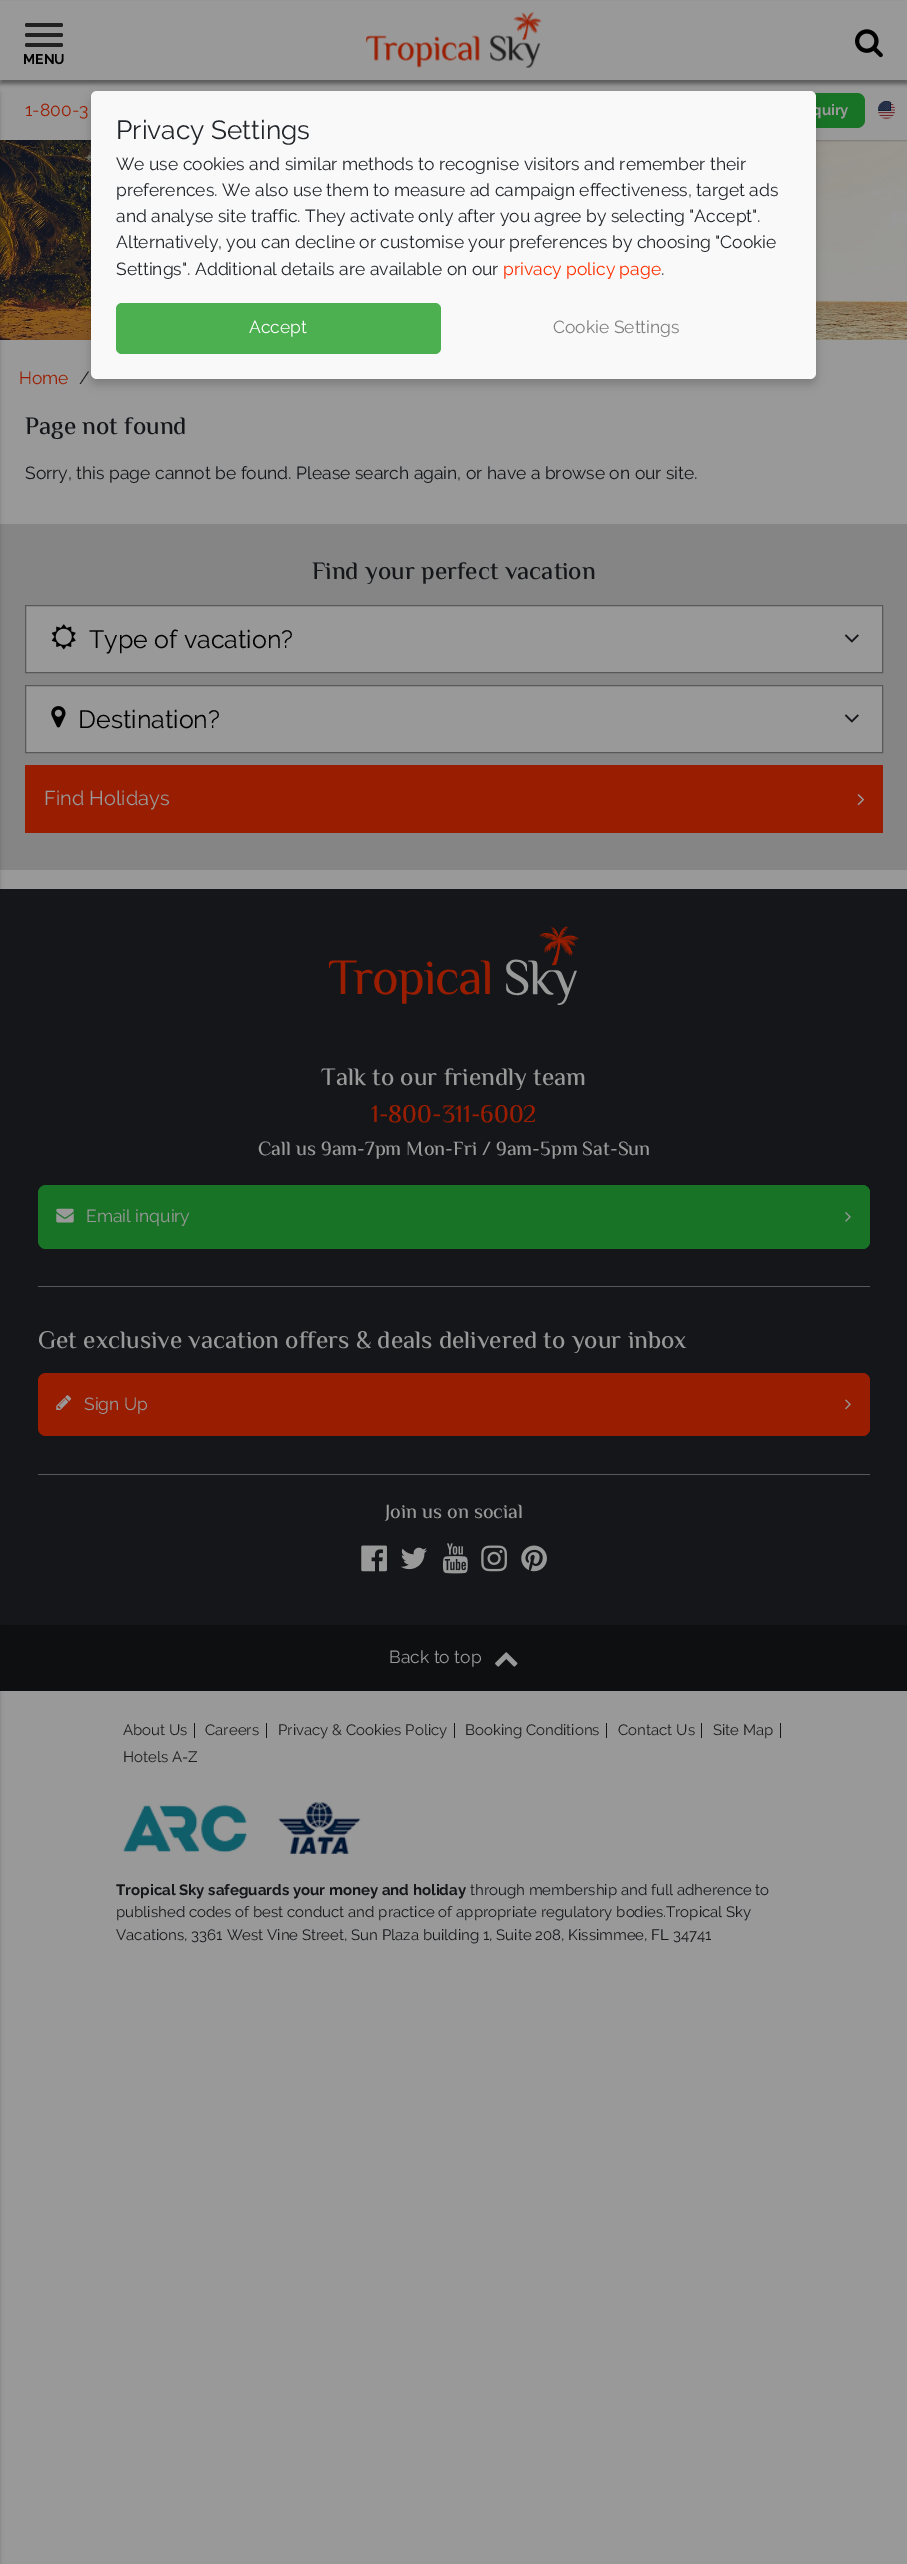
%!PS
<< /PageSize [907 2564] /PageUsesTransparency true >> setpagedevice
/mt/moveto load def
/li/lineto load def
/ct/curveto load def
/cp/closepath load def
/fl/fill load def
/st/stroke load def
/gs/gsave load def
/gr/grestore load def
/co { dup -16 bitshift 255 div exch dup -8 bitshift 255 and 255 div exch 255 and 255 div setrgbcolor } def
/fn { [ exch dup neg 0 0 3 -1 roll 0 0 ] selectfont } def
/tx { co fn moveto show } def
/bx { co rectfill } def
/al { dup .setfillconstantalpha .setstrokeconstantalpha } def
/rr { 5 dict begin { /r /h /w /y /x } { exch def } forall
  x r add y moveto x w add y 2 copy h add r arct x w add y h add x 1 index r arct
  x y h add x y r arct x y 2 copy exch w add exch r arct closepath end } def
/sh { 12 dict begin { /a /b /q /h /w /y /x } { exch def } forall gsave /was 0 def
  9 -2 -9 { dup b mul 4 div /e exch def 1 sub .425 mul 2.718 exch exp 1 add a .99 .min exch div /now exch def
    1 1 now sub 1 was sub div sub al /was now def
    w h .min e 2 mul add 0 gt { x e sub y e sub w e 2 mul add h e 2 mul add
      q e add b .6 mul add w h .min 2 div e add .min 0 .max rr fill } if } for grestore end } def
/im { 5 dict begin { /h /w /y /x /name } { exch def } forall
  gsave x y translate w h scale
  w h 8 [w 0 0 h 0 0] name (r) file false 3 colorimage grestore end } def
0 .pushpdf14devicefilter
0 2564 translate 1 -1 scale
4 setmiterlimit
0 0 907 2564 16#999999 bx
16#000000 co
0 4 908 80 0 2 .4 sh
(media/4.raw) 0 140 907 200 im
gs
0 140 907 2 rectclip
0 81 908 60 0 1 .2 sh
gr
0 1 907 79 16#999999 bx
(media/1.raw) 366 12 176 56 im
(media/2.raw) 855 29 28 29 im
16#222222 co
25 23 38 4 2 rr fl
25 33 38 4 2 rr fl
25 43 38 4 2 rr fl
0 524 907 346 16#858585 bx
0 889 907 736 16#141619 bx
0 1625 907 66 16#0D0F10 bx
16#000000 co
-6 93 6 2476 0 2 .2 sh
16#187326 co
739 93 126 35 8 rr fl
(media/3.raw) 878 101 17 18 im
16#999999 co
25.5 605.5 mt 882.5 605.5 li 882.5 672.5 li 25.5 672.5 li cp gs fl gr
16#585858 co
st
(media/5.raw) 51 624 25 26 im
(media/6.raw) 844 634 15 9 im
16#999999 co
25.5 685.5 mt 882.5 685.5 li 882.5 752.5 li 25.5 752.5 li cp gs fl gr
16#585858 co
st
(media/7.raw) 51 706 15 22 im
(media/6.raw) 844 714 15 9 im
25 765 858 68 16#991D00 bx
(media/8.raw) 857 794 8 12 im
(media/9.raw) 329 926 250 79 im
16#187326 co
38 1185 832 64 8 rr fl
(media/10.raw) 56 1208 18 15 im
826 1185 mt 862 1185 li 866.5 1185 870 1188.5 870 1193 ct 870 1241 li 870 1245.5 866.5 1249 862 1249 ct 826 1249 li cp fl
(media/11.raw) 845 1212 6 10 im
38 1286 832 1 16#585858 bx
38 1474 832 1 16#585858 bx
16#991D00 co
38 1373 832 63 8 rr fl
(media/12.raw) 56 1395 15 15 im
826 1373 mt 862 1373 li 866.5 1373 870 1376.5 870 1381 ct 870 1428 li 870 1432.5 866.5 1436 862 1436 ct 826 1436 li cp fl
(media/13.raw) 845 1399 6 11 im
(media/14.raw) 361 1545 26 27 im
(media/15.raw) 400 1547 27 23 im
(media/16.raw) 442 1543 26 31 im
(media/17.raw) 481 1545 26 27 im
(media/18.raw) 521 1545 26 27 im
(media/19.raw) 495 1652 23 15 im
194 1723 1 15 16#141619 bx
266 1723 1 15 16#141619 bx
454 1723 1 15 16#141619 bx
606 1723 1 15 16#141619 bx
701 1723 1 15 16#141619 bx
780 1723 1 15 16#141619 bx
(media/20.raw) 123 1804 124 49 im
(media/21.raw) 278 1802 83 52 im
16#000000 co
91 96 725 288 6 5 .2 sh
(MENU) 23 64 /Raleway-Bold 14 16#000000 tx
(1-800-3) 25 116 /Raleway-Regular 17.5 16#991D00 tx
(quiry) 812 115 /Raleway-Bold 15 16#999999 tx
(Home) 19 384 /Raleway-Regular 17.5 16#991D00 tx
(/) 79 384 /Raleway-Regular 17.5 16#1D1D1D tx
(Page not found) 25 434 /ElMessiri-Medium 25 16#141619 tx
(Sorry, this page cannot be found. Please search again, or have a browse on our site.) 25 479 /Raleway-Regular 17.5 16#141619 tx
(Find your perfect vacation) 312 579 /ElMessiri-Medium 25 16#141619 tx
(Type of vacation?) 89 648 /Raleway-Regular 25 16#000000 tx
(Destination?) 78 728 /Raleway-Regular 25 16#000000 tx
(Find Holidays) 44 805 /Raleway-Regular 20 16#999999 tx
(Talk to our friendly team) 321 1085 /ElMessiri-Medium 25 16#999999 tx
(1-800-311-6002) 371 1122 /ElMessiri-Medium 25 16#991D00 tx
(Call us 9am-7pm Mon-Fri / 9am-5pm Sat-Sun) 258 1155 /ElMessiri-Medium 20 16#999999 tx
(Email inquiry) 86 1222 /Raleway-Regular 17.5 16#999999 tx
(Get exclusive vacation offers & deals delivered to your inbox) 38 1348 /ElMessiri-Medium 25 16#999999 tx
(Sign Up) 84 1410 /Raleway-Regular 17.5 16#999999 tx
(Join us on social) 385 1518 /ElMessiri-Medium 20 16#999999 tx
(Back to top) 389 1663 /Raleway-Regular 17.5 16#999999 tx
(About Us) 123 1735 /Raleway-Regular 15 16#1D1D1D tx
(Careers) 205 1735 /Raleway-Regular 15 16#1D1D1D tx
(Privacy & Cookies Policy) 278 1735 /Raleway-Regular 15 16#1D1D1D tx
(Booking Conditions) 465 1735 /Raleway-Regular 15 16#1D1D1D tx
(Contact Us) 618 1735 /Raleway-Regular 15 16#1D1D1D tx
(Site Map) 713 1735 /Raleway-Regular 15 16#1D1D1D tx
(Hotels A-Z) 123 1762 /Raleway-Regular 15 16#1D1D1D tx
(Tropical Sky safeguards your money and holiday) 116 1895 /Raleway-Bold 15 16#141619 tx
(through membership and full adherence to) 470 1895 /Raleway-Regular 15 16#141619 tx
(published codes of best conduct and practice of appropriate regulatory bodies.Tropical Sky) 116 1917 /Raleway-Regular 15 16#141619 tx
(Vacations, 3361 West Vine Street, Sun Plaza building 1, Suite 208, Kissimmee, FL 34741) 116 1940 /Raleway-Regular 15 16#141619 tx
16#F9F9F9 co
91 91 725 288 6 rr fl
(Privacy Settings) 116 139 /Raleway-Regular 26.25 16#212529 tx
(We use cookies and similar methods to recognise visitors and remember their) 116 170 /Raleway-Regular 17.5 16#212529 tx
(preferences. We also use them to measure ad campaign effectiveness, target ads) 116 196 /Raleway-Regular 17.5 16#212529 tx
(and analyse site traffic. They activate only after you agree by selecting "Accept".) 116 222 /Raleway-Regular 17.5 16#212529 tx
(Alternatively, you can decline or customise your preferences by choosing "Cookie) 116 248 /Raleway-Regular 17.5 16#212529 tx
(Settings". Additional details are available on our) 116 275 /Raleway-Regular 17.5 16#212529 tx
(privacy policy page) 503 275 /Raleway-Regular 17.5 16#FF3000 tx
(.) 661 275 /Raleway-Regular 17.5 16#212529 tx
16#4CAF50 co
116 303 325 51 6 rr fl
(Accept) 249 333 /Raleway-Regular 17.5 16#FFFFFF tx
(Cookie Settings) 553 333 /Raleway-Regular 17.5 16#808080 tx
.poppdf14devicefilter showpage
